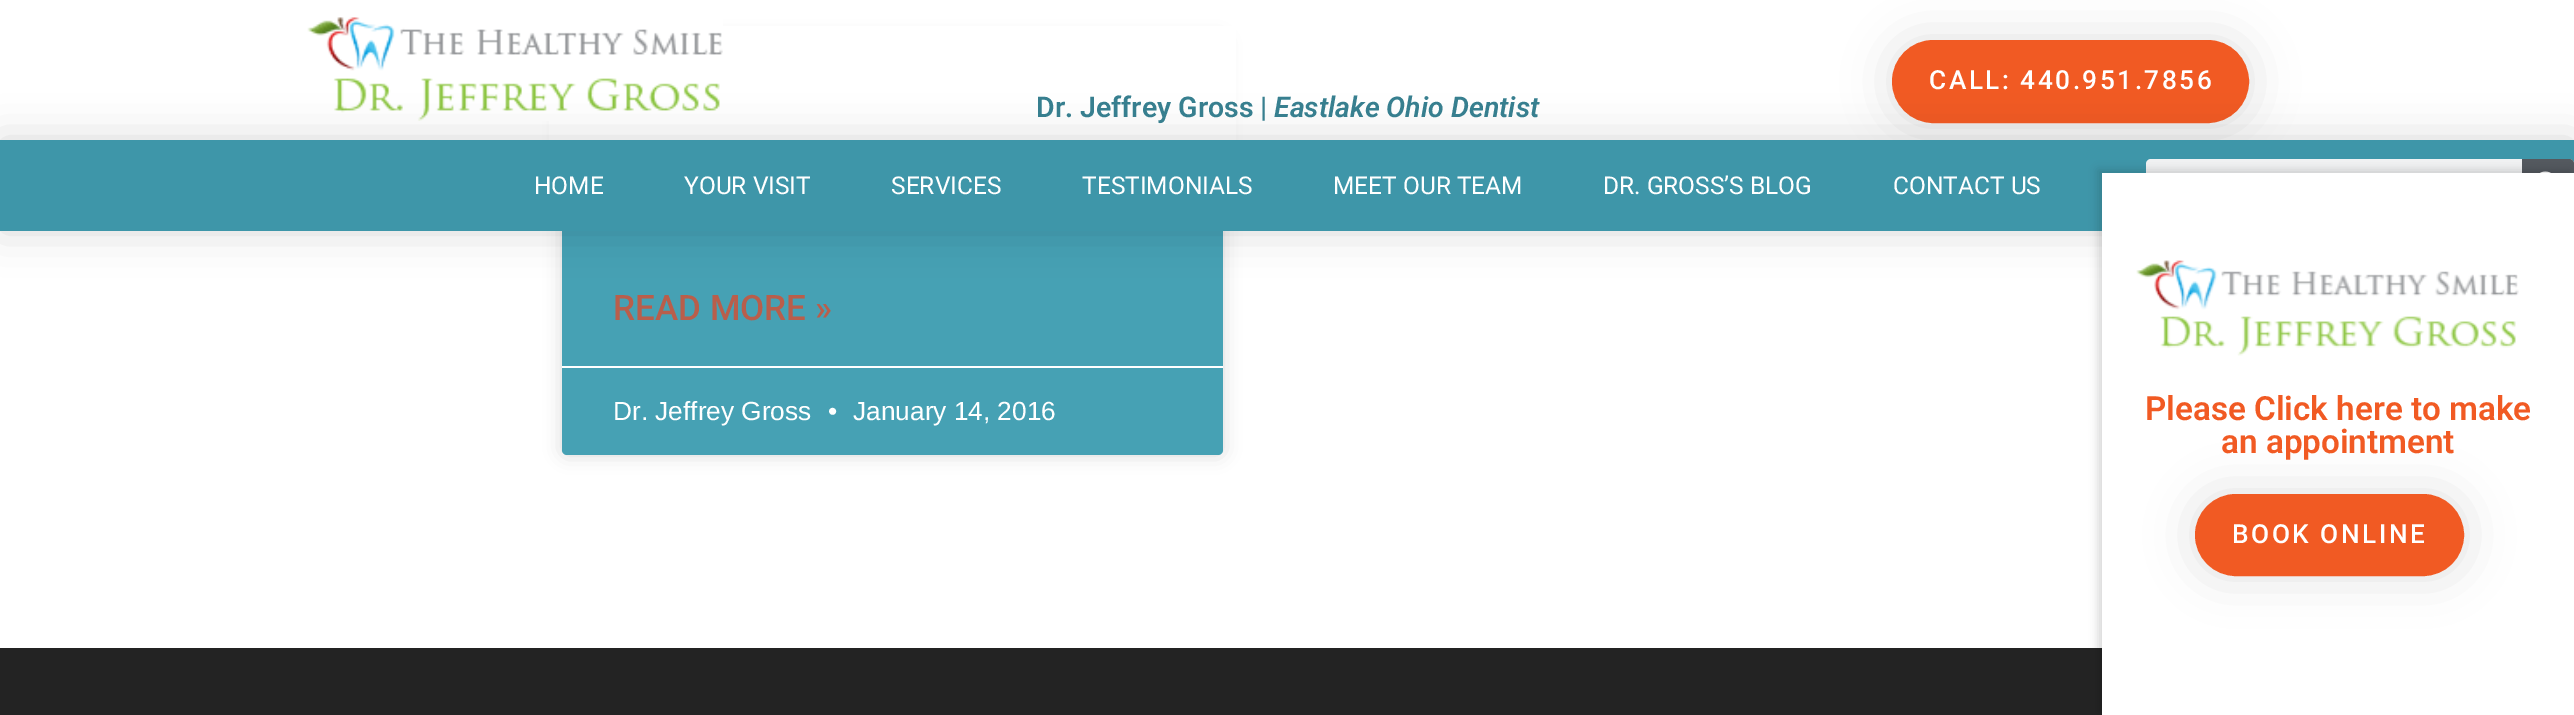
%!PS
<< /PageSize [2574 715] /PageUsesTransparency true >> setpagedevice
/mt/moveto load def
/li/lineto load def
/ct/curveto load def
/cp/closepath load def
/fl/fill load def
/st/stroke load def
/gs/gsave load def
/gr/grestore load def
/lw/setlinewidth load def
/co { dup -16 bitshift 255 div exch dup -8 bitshift 255 and 255 div exch 255 and 255 div setrgbcolor } def
/fn { [ exch dup neg 0 0 3 -1 roll 0 0 ] selectfont } def
/tx { co fn moveto show } def
/bx { co rectfill } def
/al { dup .setfillconstantalpha .setstrokeconstantalpha } def
/rr { 5 dict begin { /r /h /w /y /x } { exch def } forall
  x r add y moveto x w add y 2 copy h add r arct x w add y h add x 1 index r arct
  x y h add x y r arct x y 2 copy exch w add exch r arct closepath end } def
/sh { 12 dict begin { /a /b /q /h /w /y /x } { exch def } forall gsave /was 0 def
  9 -2 -9 { dup b mul 4 div /e exch def 1 sub .425 mul 2.718 exch exp 1 add a .99 .min exch div /now exch def
    1 1 now sub 1 was sub div sub al /was now def
    w h .min e 2 mul add 0 gt { x e sub y e sub w e 2 mul add h e 2 mul add
      q e add b .6 mul add w h .min 2 div e add .min 0 .max rr fill } if } for grestore end } def
/im { 5 dict begin { /h /w /y /x /name } { exch def } forall
  gsave x y translate w h scale
  w h 8 [w 0 0 h 0 0] name (r) file false 3 colorimage grestore end } def
0 .pushpdf14devicefilter
0 715 translate 1 -1 scale
4 setmiterlimit
0 0 2574 715 16#FFFFFF bx
16#000000 co
562 39 661 416 5 9 .15 sh
16#46A1B4 co
562 39 661 416 5 rr fl
549 26 687 114 16#FFFFFF bx
(media/1.raw) 307 17 416 104 im
16#000000 co
1892 40 357 83 41.5 23.5 .12 sh
16#F15A23 co
1893 41 355 81 40.5 rr gs fl gr
2 lw
st
16#000000 co
0 140 2574 91 0 21 .15 sh
0 140 2574 91 16#3E96A9 bx
16#F1F2F3 co
2146 159 428 53 5 rr fl
16#54595F co
2522 159 mt 2569 159 li 2572 159 2574 161 2574 164 ct 2574 207 li 2574 210 2572 212 2569 212 ct 2522 212 li cp fl
(media/2.raw) 2540 171 11 2 im
562 366 661 2 16#FFFFFF bx
0 648 2102 67 16#232323 bx
16#000000 co
2098 170 473 542 0 4.5 .15 sh
2102 173 472 542 16#FFFFFF bx
(media/3.raw) 2136 260 383 96 im
16#000000 co
2195 494 269 82 41 23.5 .12 sh
16#F15A23 co
2196 495 267 80 40 rr gs fl gr
st
/Roboto-Medium 26.25 fn
16#FFFFFF co
1929 89 mt 2.5 0 (CALL: 440.951.7856) ashow
(Dr. Jeffrey Gross |) 1036 117 /Roboto-SemiBold 28.5 16#377F8F tx
(Eastlake Ohio Dentist) 1274 117 /Roboto-SemiBoldItalic 28.5 16#377F8F tx
(HOME) 534 194 /Roboto-Regular 24.5 16#FFFFFF tx
(YOUR VISIT) 684 194 /Roboto-Regular 24.5 16#FFFFFF tx
(SERVICES) 891 194 /Roboto-Regular 24.5 16#FFFFFF tx
(TESTIMONIALS) 1082 194 /Roboto-Regular 24.5 16#FFFFFF tx
(MEET OUR TEAM) 1333 194 /Roboto-Regular 24.5 16#FFFFFF tx
(DR. GROSS’S BLOG) 1603 194 /Roboto-Regular 24.5 16#FFFFFF tx
(CONTACT US) 1893 194 /Roboto-Regular 24.5 16#FFFFFF tx
(READ MORE ») 613 320 /Roboto-Medium 35 16#B95E4B tx
(Dr. Jeffrey Gross) 613 420 /LiberationSans-Regular 26.25 16#FFFFFF tx
(•) 828 420 /LiberationSans-Regular 26.25 16#FFFFFF tx
(January 14, 2016) 853 420 /LiberationSans-Regular 26.25 16#FFFFFF tx
(Please Click here to make) 2145 420 /Roboto-SemiBold 33.25 16#F15A23 tx
(an appointment) 2221 453 /Roboto-SemiBold 33.25 16#F15A23 tx
/Roboto-Medium 26.25 fn
16#FFFFFF co
2232 543 mt 2.5 0 (BOOK ONLINE) ashow
.poppdf14devicefilter showpage
